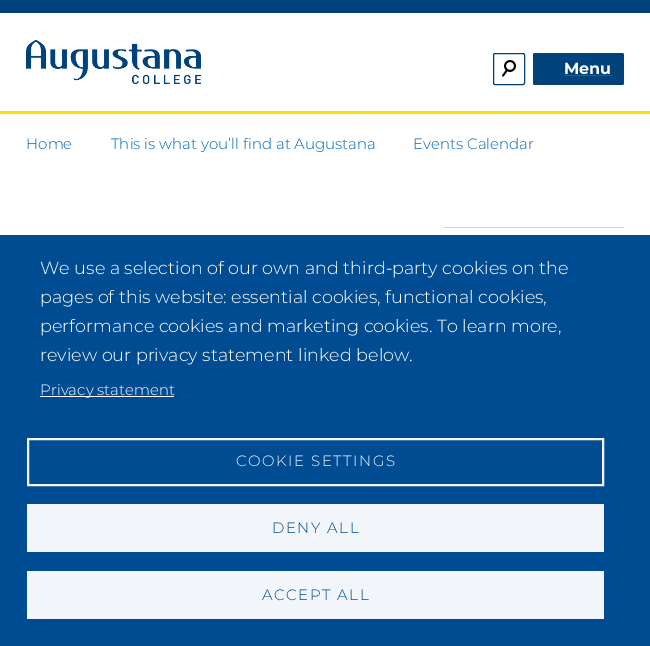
%!PS
<< /PageSize [650 646] >> setpagedevice
/mt/moveto load def
/fl/fill load def
/st/stroke load def
/lw/setlinewidth load def
/co { dup -16 bitshift 255 div exch dup -8 bitshift 255 and 255 div exch 255 and 255 div setrgbcolor } def
/fn { [ exch dup neg 0 0 3 -1 roll 0 0 ] selectfont } def
/tx { co fn moveto show } def
/bx { co rectfill } def
/rr { 5 dict begin { /r /h /w /y /x } { exch def } forall
  x r add y moveto x w add y 2 copy h add r arct x w add y h add x 1 index r arct
  x y h add x y r arct x y 2 copy exch w add exch r arct closepath end } def
/im { 5 dict begin { /h /w /y /x /name } { exch def } forall
  gsave x y translate w h scale
  w h 8 [w 0 0 h 0 0] name (r) file false 3 colorimage grestore end } def
0 646 translate 1 -1 scale
4 setmiterlimit
0 0 650 646 16#FFFFFF bx
0 0 650 13 16#00437B bx
0 113 650 1 16#D7D2CB bx
(media/1.raw) 26 40 175 44 im
(media/2.raw) 502 60 14 17 im
16#00437B co
493.5 53.5 31 31 1.5 rr st
533 53 91 32 2 rr fl
564 75 48 1 16#0067B9 bx
0 111 650 2 16#FFDD00 bx
444 227 180 1 16#D7D2CB bx
0 235 650 411 16#004C93 bx
40 396 134 1 16#FFFFFF bx
16#F2F6FA co
2 lw
28 439 575 46 rectstroke
27 504 577 48 16#F2F6FA bx
27 571 577 48 16#F2F6FA bx
(Menu) 564 74 /Montserrat-Bold 16 16#FFFFFF tx
(Home) 26 149 /Montserrat-Light 15 16#0067B9 tx
(This is what you’ll find at Augustana) 111 149 /Montserrat-Light 15 16#0067B9 tx
(Events Calendar) 413 149 /Montserrat-Light 15 16#0067B9 tx
(We use a selection of our own and third-party cookies on the) 40 274 /Montserrat-Light 17.6 16#FFFFFF tx
(pages of this website: essential cookies, functional cookies,) 40 303 /Montserrat-Light 17.6 16#FFFFFF tx
(performance cookies and marketing cookies. To learn more,) 40 332 /Montserrat-Light 17.6 16#FFFFFF tx
(review our privacy statement linked below.) 40 361 /Montserrat-Light 17.6 16#FFFFFF tx
(Privacy statement) 40 395 /Montserrat-Light 15 16#FFFFFF tx
16#F2F6FA co
236 466 mt 1.5 0 (COOKIE SETTINGS) ashow
16#004C93 co
272 533 mt 1.5 0 (DENY ALL) ashow
262 600 mt 1.5 0 (ACCEPT ALL) ashow
showpage
